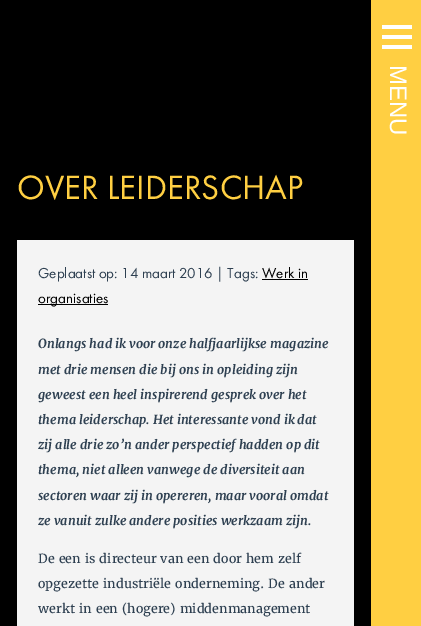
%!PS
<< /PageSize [421 626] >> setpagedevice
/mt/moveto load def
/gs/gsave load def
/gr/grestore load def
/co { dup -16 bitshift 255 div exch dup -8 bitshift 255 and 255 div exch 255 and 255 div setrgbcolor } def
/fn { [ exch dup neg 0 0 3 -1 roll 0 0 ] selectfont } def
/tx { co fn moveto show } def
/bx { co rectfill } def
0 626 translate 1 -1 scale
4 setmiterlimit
0 0 421 626 16#000000 bx
371 0 50 626 16#FFCF42 bx
382 35 30 4 16#FFFFFF bx
382 25 30 4 16#FFFFFF bx
382 45 30 4 16#FFFFFF bx
17 240 337 386 16#F4F4F4 bx
262 279 46 1 16#000000 bx
38 304 70 1 16#000000 bx
/LiberationSans-Regular 24 fn
16#FFFFFF co
gs 390 65 translate 90 rotate 0 0 mt (MENU) show gr
(OVER LEIDERSCHAP) 17 199 /FuturaPT-Regular 35 16#FFCF42 tx
(Geplaatst op: 14 maart 2016 | Tags:) 38 278 /FuturaPT-Regular 15 16#2E4051 tx
(Werk in) 262 278 /FuturaPT-Regular 15 16#000000 tx
(organisaties) 38 303 /FuturaPT-Regular 15 16#000000 tx
(Onlangs had ik voor onze halfjaarlijkse magazine) 38 348 /Merriweather-BoldItalic 12.6 16#2E4051 tx
(met drie mensen die bij ons in opleiding zijn) 38 374 /Merriweather-BoldItalic 12.6 16#2E4051 tx
(geweest een heel inspirerend gesprek over het) 38 399 /Merriweather-BoldItalic 12.6 16#2E4051 tx
(thema leiderschap. Het interessante vond ik dat) 38 424 /Merriweather-BoldItalic 12.6 16#2E4051 tx
(zij alle drie zo’n ander perspectief hadden op dit) 38 449 /Merriweather-BoldItalic 12.6 16#2E4051 tx
(thema, niet alleen vanwege de diversiteit aan) 38 474 /Merriweather-BoldItalic 12.6 16#2E4051 tx
(sectoren waar zij in opereren, maar vooral omdat) 38 500 /Merriweather-BoldItalic 12.6 16#2E4051 tx
(ze vanuit zulke andere posities werkzaam zijn.) 38 525 /Merriweather-BoldItalic 12.6 16#2E4051 tx
(De een is directeur van een door hem zelf) 38 563 /Merriweather-Regular 12.6 16#2E4051 tx
(opgezette industriële onderneming. De ander) 38 588 /Merriweather-Regular 12.6 16#2E4051 tx
(werkt in een \(hogere\) middenmanagement) 38 613 /Merriweather-Regular 12.6 16#2E4051 tx
showpage
